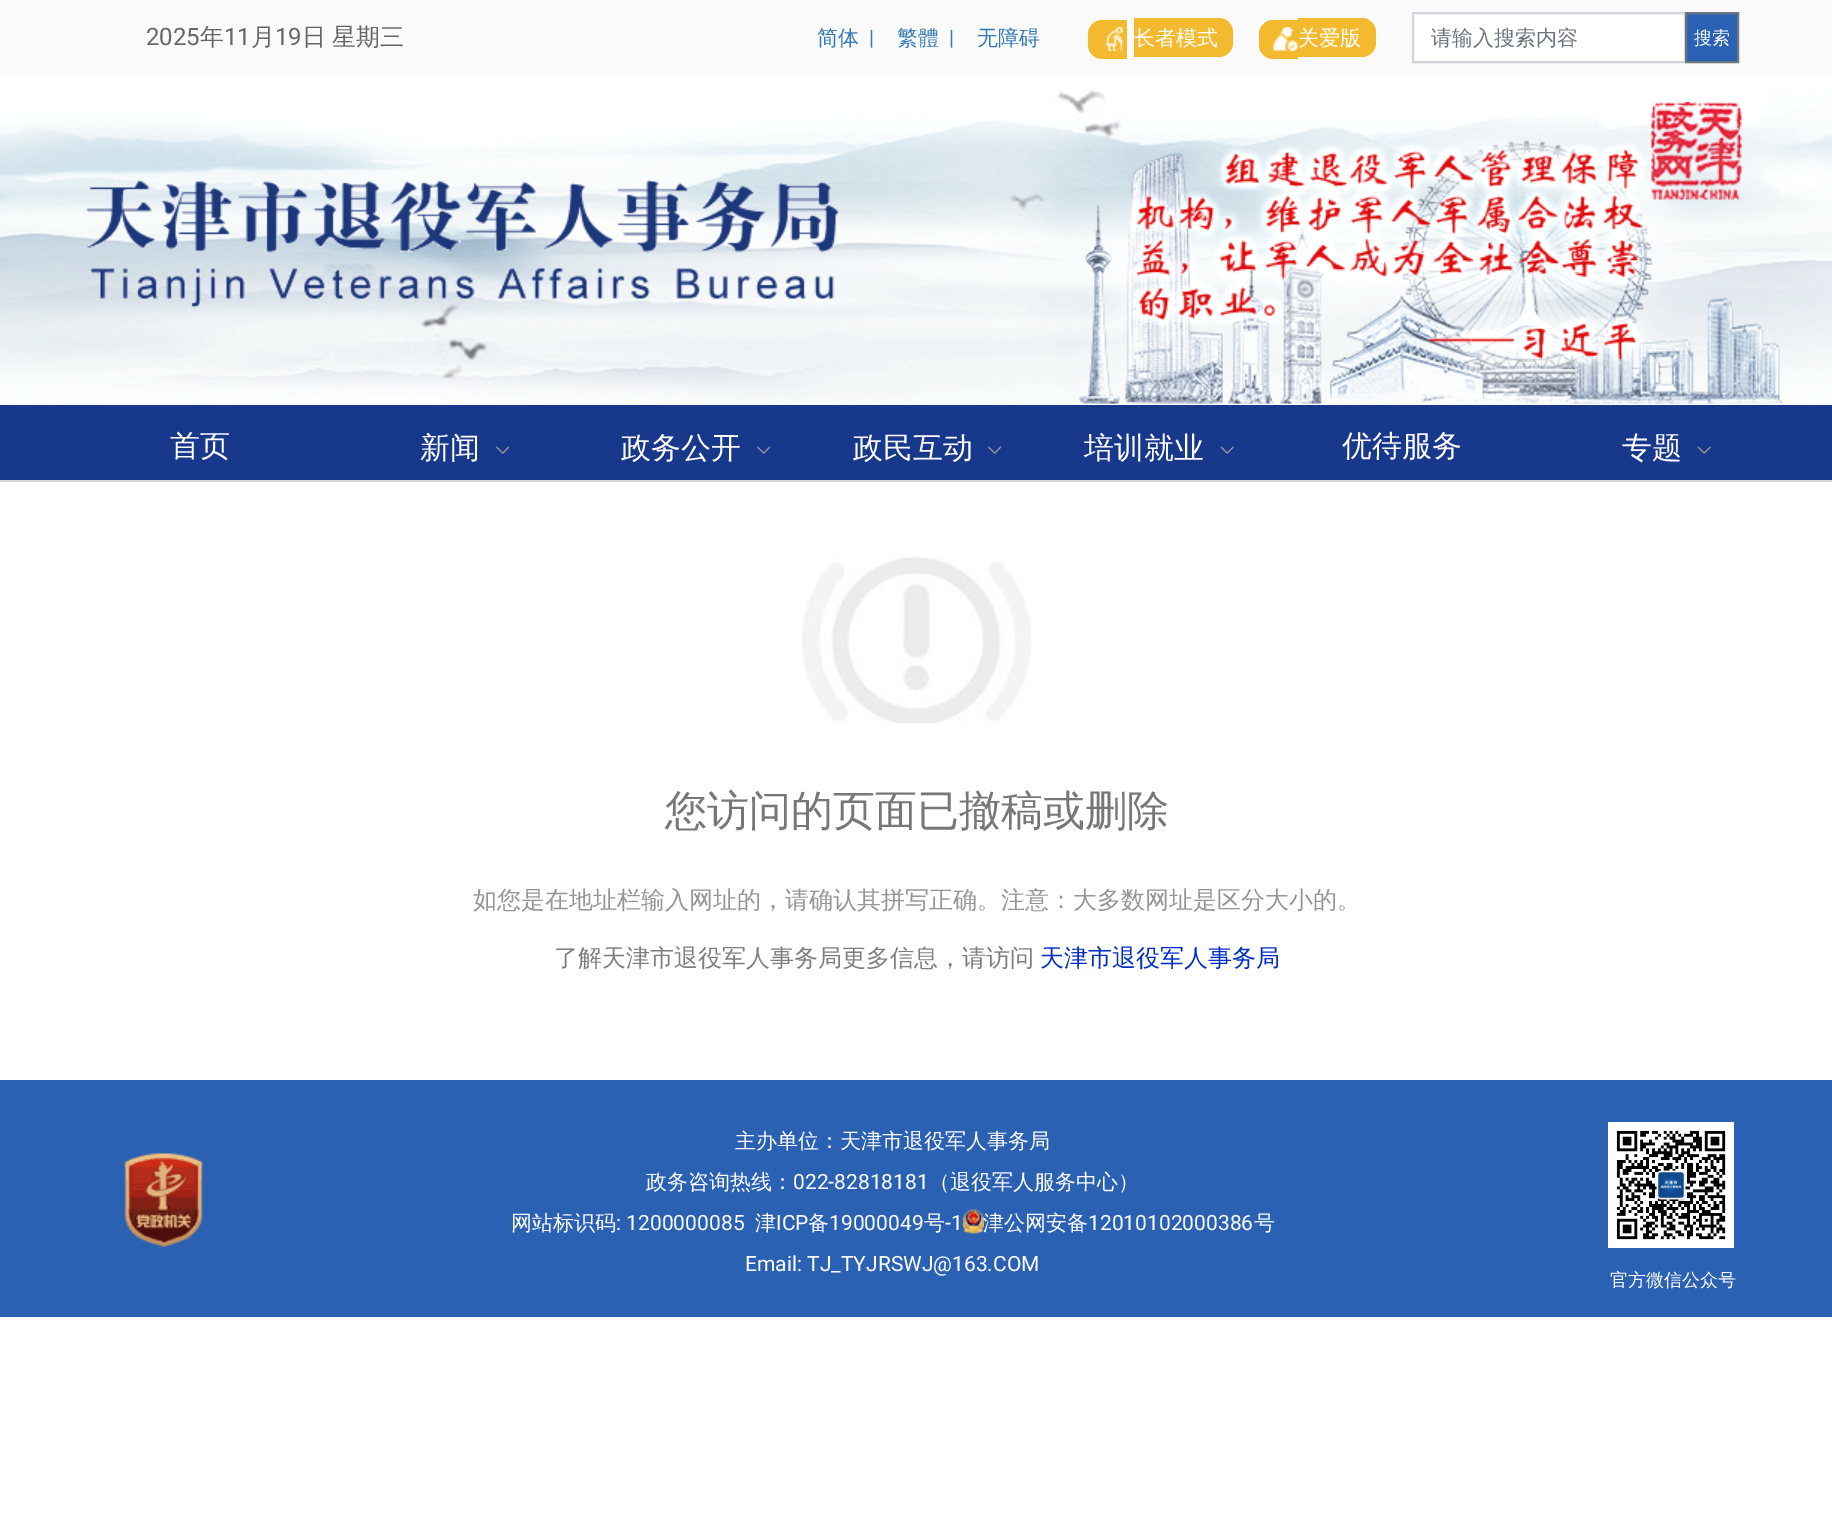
%!PS
<< /PageSize [1832 1524] >> setpagedevice
/mt/moveto load def
/li/lineto load def
/ct/curveto load def
/cp/closepath load def
/fl/fill load def
/st/stroke load def
/gs/gsave load def
/gr/grestore load def
/lw/setlinewidth load def
/co { dup -16 bitshift 255 div exch dup -8 bitshift 255 and 255 div exch 255 and 255 div setrgbcolor } def
/fn { [ exch dup neg 0 0 3 -1 roll 0 0 ] selectfont } def
/tx { co fn moveto show } def
/bx { co rectfill } def
/im { 5 dict begin { /h /w /y /x /name } { exch def } forall
  gsave x y translate w h scale
  w h 8 [w 0 0 h 0 0] name (r) file false 3 colorimage grestore end } def
0 1524 translate 1 -1 scale
4 setmiterlimit
0 0 1832 1524 16#FFFFFF bx
0 0 1832 75 16#FAFAFA bx
16#F4BA2F co
1102 20 mt 1127 20 li 1127 59 li 1102 59 li 1094.5 59 1088 52.5 1088 45 ct 1088 34 li 1088 26.5 1094.5 20 1102 20 ct cp fl
(media/1.raw) 1105 27 19 24 im
1134 18 mt 1219 18 li 1226.5 18 1233 24.5 1233 32 ct 1233 43 li 1233 50.5 1226.5 57 1219 57 ct 1134 57 li cp fl
1273 20 mt 1298 20 li 1298 59 li 1273 59 li 1265.5 59 1259 52.5 1259 45 ct 1259 34 li 1259 26.5 1265.5 20 1273 20 ct cp fl
(media/2.raw) 1273 27 25 24 im
1298 18 mt 1362 18 li 1369.5 18 1376 24.5 1376 32 ct 1376 43 li 1376 50.5 1369.5 57 1362 57 ct 1298 57 li cp fl
16#FFFFFF co
1413 13 mt 1685 13 li 1685 62 li 1413 62 li cp gs fl gr
16#CED4DA co
2 lw
st
16#2B61B3 co
1686 13 mt 1738 13 li 1738 62 li 1686 62 li cp gs fl gr
16#6C757D co
st
(media/3.raw) 0 90 1832 314 im
(media/4.raw) 1651 102 91 98 im
(media/5.raw) 85 179 754 129 im
0 405 1832 75 16#18388C bx
(media/6.raw) 496 446 14 8 im
(media/7.raw) 757 446 14 8 im
(media/6.raw) 988 446 14 8 im
(media/8.raw) 1220 446 14 8 im
(media/9.raw) 1697 446 14 8 im
0 480 1832 2 16#DADADA bx
(media/10.raw) 802 556 230 167 im
0 1080 1832 237 16#2B61B3 bx
(media/11.raw) 124 1152 79 97 im
(media/12.raw) 963 1209 21 25 im
(media/13.raw) 1608 1122 126 126 im
(2025) 146 45 /Roboto-Regular 24 16#666666 tx
(年) 200 45 /WenQuanYiZenHei-Medium 24 16#666666 tx
(11) 224 45 /Roboto-Regular 24 16#666666 tx
(月) 251 45 /WenQuanYiZenHei-Medium 24 16#666666 tx
(19) 275 45 /Roboto-Regular 24 16#666666 tx
/WenQuanYiZenHei-Medium 24 fn
302 45 mt -1 0 32 (日 星期三) widthshow
(简体) 817 45 /WenQuanYiZenHei-Medium 21 16#337AB7 tx
(|) 869 45 /Roboto-Regular 21 16#337AB7 tx
(繁體) 897 45 /WenQuanYiZenHei-Medium 21 16#337AB7 tx
(|) 949 45 /Roboto-Regular 21 16#337AB7 tx
(无障碍) 977 45 /WenQuanYiZenHei-Medium 21 16#337AB7 tx
(长者模式) 1134 45 /WenQuanYiZenHei-Medium 21 16#FFFFFF tx
(关爱版) 1298 45 /WenQuanYiZenHei-Medium 21 16#FFFFFF tx
(请输入搜索内容) 1431 45 /WenQuanYiZenHei-Medium 21 16#6C757D tx
(搜索) 1694 44 /WenQuanYiZenHei-Medium 18 16#FFFFFF tx
(首页) 170 456 /WenQuanYiZenHei-Medium 30 16#FFFFFF tx
(新闻) 420 458 /WenQuanYiZenHei-Medium 30 16#FFFFFF tx
(政务公开) 621 458 /WenQuanYiZenHei-Medium 30 16#FFFFFF tx
(政民互动) 853 458 /WenQuanYiZenHei-Medium 30 16#FFFFFF tx
(培训就业) 1084 458 /WenQuanYiZenHei-Medium 30 16#FFFFFF tx
(优待服务) 1342 456 /WenQuanYiZenHei-Medium 30 16#FFFFFF tx
(专题) 1622 458 /WenQuanYiZenHei-Medium 30 16#FFFFFF tx
(您访问的页面已撤稿或删除) 665 825 /WenQuanYiZenHei-Medium 42 16#777777 tx
(如您是在地址栏输入网址的，请确认其拼写正确。注意：大多数网址是区分大小的。) 473 908 /WenQuanYiZenHei-Medium 24 16#959595 tx
(了解天津市退役军人事务局更多信息，请访问) 554 966 /WenQuanYiZenHei-Medium 24 16#7E7E7E tx
(天津市退役军人事务局) 1040 966 /WenQuanYiZenHei-Medium 24 16#002EC3 tx
(主办单位：天津市退役军人事务局) 735 1148 /WenQuanYiZenHei-Medium 21 16#FFFFFF tx
(政务咨询热线：) 646 1189 /WenQuanYiZenHei-Medium 21 16#FFFFFF tx
(022-82818181) 793 1189 /Roboto-Regular 21 16#FFFFFF tx
(（退役军人服务中心）) 929 1189 /WenQuanYiZenHei-Medium 21 16#FFFFFF tx
(网站标识码) 511 1230 /WenQuanYiZenHei-Medium 21 16#FFFFFF tx
(: 1200000085) 616 1230 /Roboto-Regular 21 16#FFFFFF tx
(津) 755 1230 /WenQuanYiZenHei-Medium 21 16#FFFFFF tx
(ICP) 776 1230 /Roboto-Regular 21 16#FFFFFF tx
(备) 808 1230 /WenQuanYiZenHei-Medium 21 16#FFFFFF tx
(19000049) 829 1230 /Roboto-Regular 21 16#FFFFFF tx
(号) 924 1230 /WenQuanYiZenHei-Medium 21 16#FFFFFF tx
(-1) 945 1230 /Roboto-Regular 21 16#FFFFFF tx
(津公网安备) 983 1230 /WenQuanYiZenHei-Medium 21 16#FFFFFF tx
(12010102000386) 1088 1230 /Roboto-Regular 21 16#FFFFFF tx
(号) 1254 1230 /WenQuanYiZenHei-Medium 21 16#FFFFFF tx
(Email: TJ_TYJRSWJ@163.COM) 745 1271 /Roboto-Regular 21 16#FFFFFF tx
(官方微信公众号) 1610 1286 /WenQuanYiZenHei-Medium 18 16#FFFFFF tx
showpage
